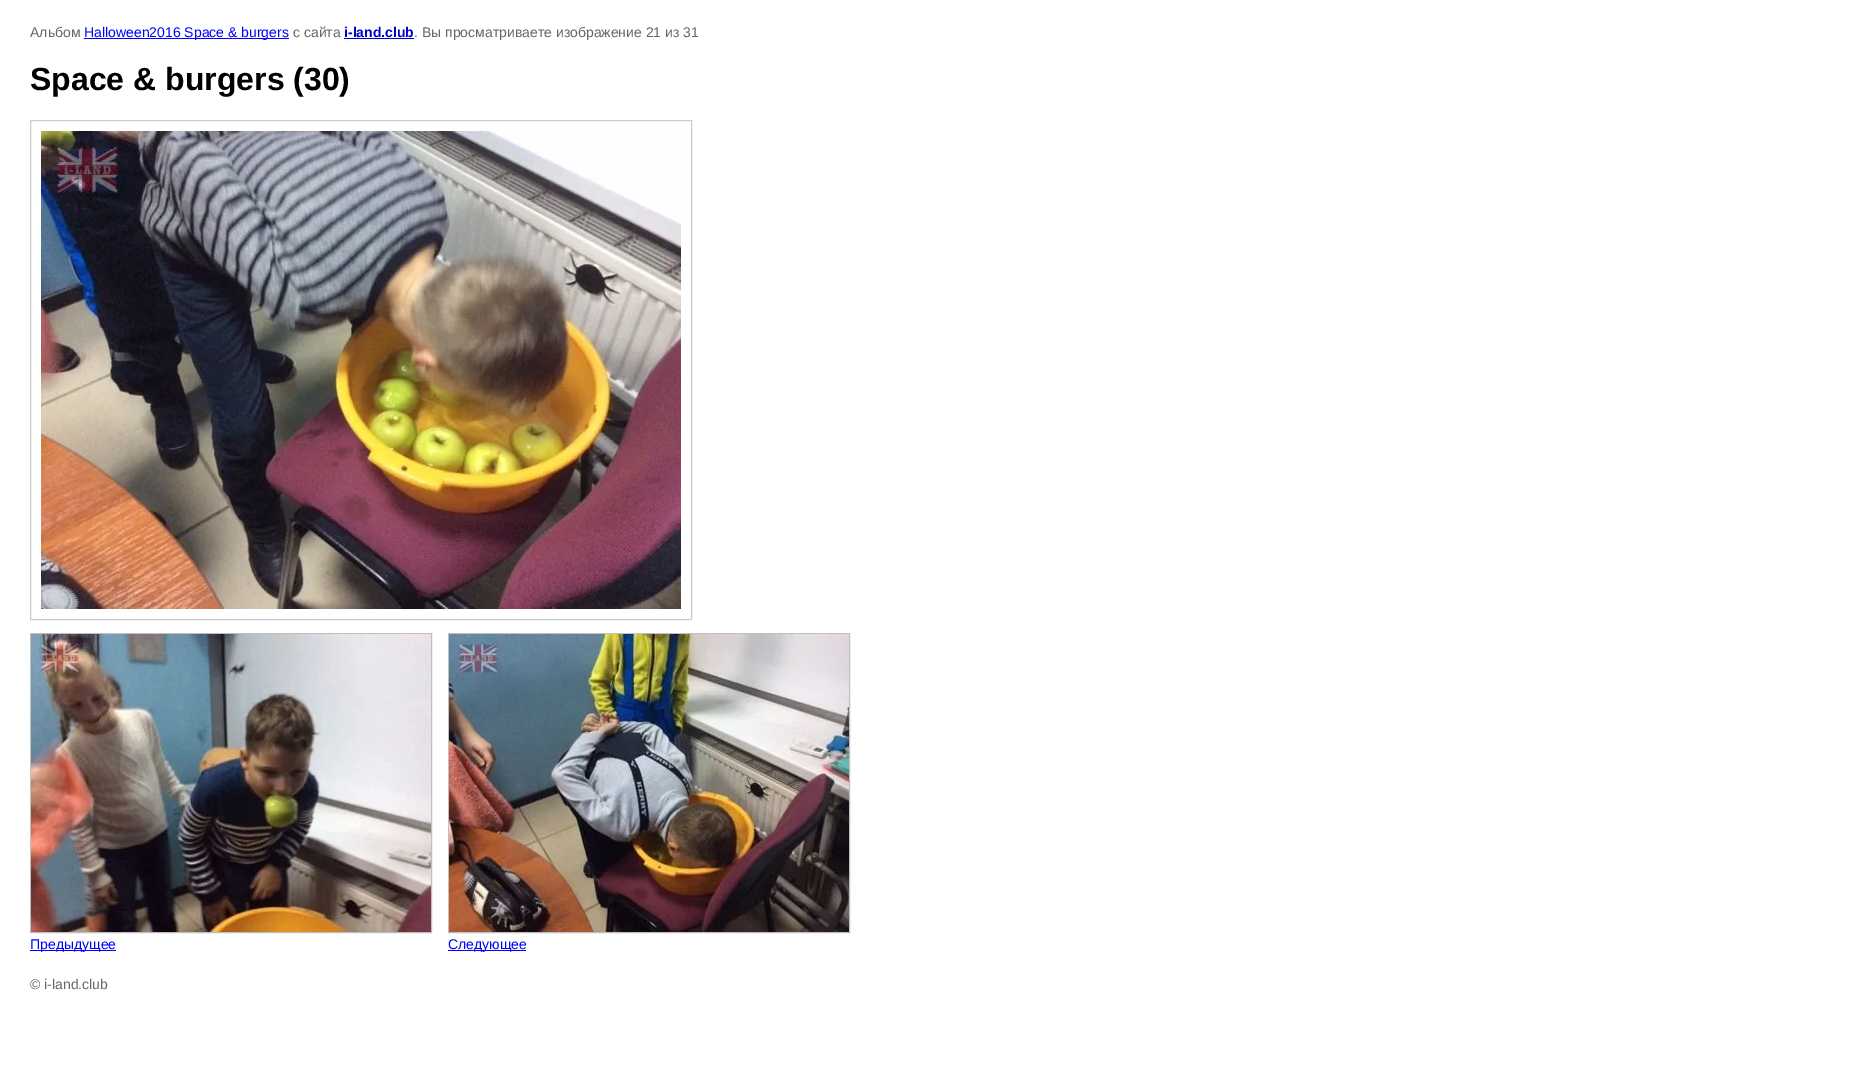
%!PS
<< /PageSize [1857 1077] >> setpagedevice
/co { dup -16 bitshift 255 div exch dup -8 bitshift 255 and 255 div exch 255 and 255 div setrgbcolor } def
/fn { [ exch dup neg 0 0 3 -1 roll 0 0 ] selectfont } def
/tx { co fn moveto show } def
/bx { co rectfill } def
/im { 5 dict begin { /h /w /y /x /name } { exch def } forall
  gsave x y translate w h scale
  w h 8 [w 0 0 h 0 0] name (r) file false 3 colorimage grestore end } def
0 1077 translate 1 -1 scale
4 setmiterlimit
0 0 1857 1077 16#FFFFFF bx
84 38 205 1 16#0000FF bx
344 38 70 1 16#0000CC bx
16#CCCCCC co
30.5 120.5 661 499 rectstroke
(media/1.raw) 41 131 640 478 im
16#C0C0C0 co
30.5 633.5 401 299 rectstroke
(media/2.raw) 31 634 400 298 im
30 950 86 1 16#0000FF bx
16#C0C0C0 co
448.5 633.5 401 299 rectstroke
(media/3.raw) 449 634 400 298 im
448 950 78 1 16#0000FF bx
(Альбом) 30 37 /LiberationSans-Regular 14 16#666666 tx
(Halloween2016 Space & burgers) 84 37 /LiberationSans-Regular 14 16#0000FF tx
(с сайта) 293 37 /LiberationSans-Regular 14 16#666666 tx
(i-land.club) 344 37 /LiberationSans-Bold 14 16#0000CC tx
(. Вы просматриваете изображение 21 из 31) 414 37 /LiberationSans-Regular 14 16#666666 tx
(Space & burgers \(30\)) 30 90 /LiberationSans-Bold 32 16#000000 tx
(Предыдущее) 30 949 /LiberationSans-Regular 14 16#0000FF tx
(Следующее) 448 949 /LiberationSans-Regular 14 16#0000FF tx
(© i-land.club) 30 989 /LiberationSans-Regular 14 16#666666 tx
showpage
